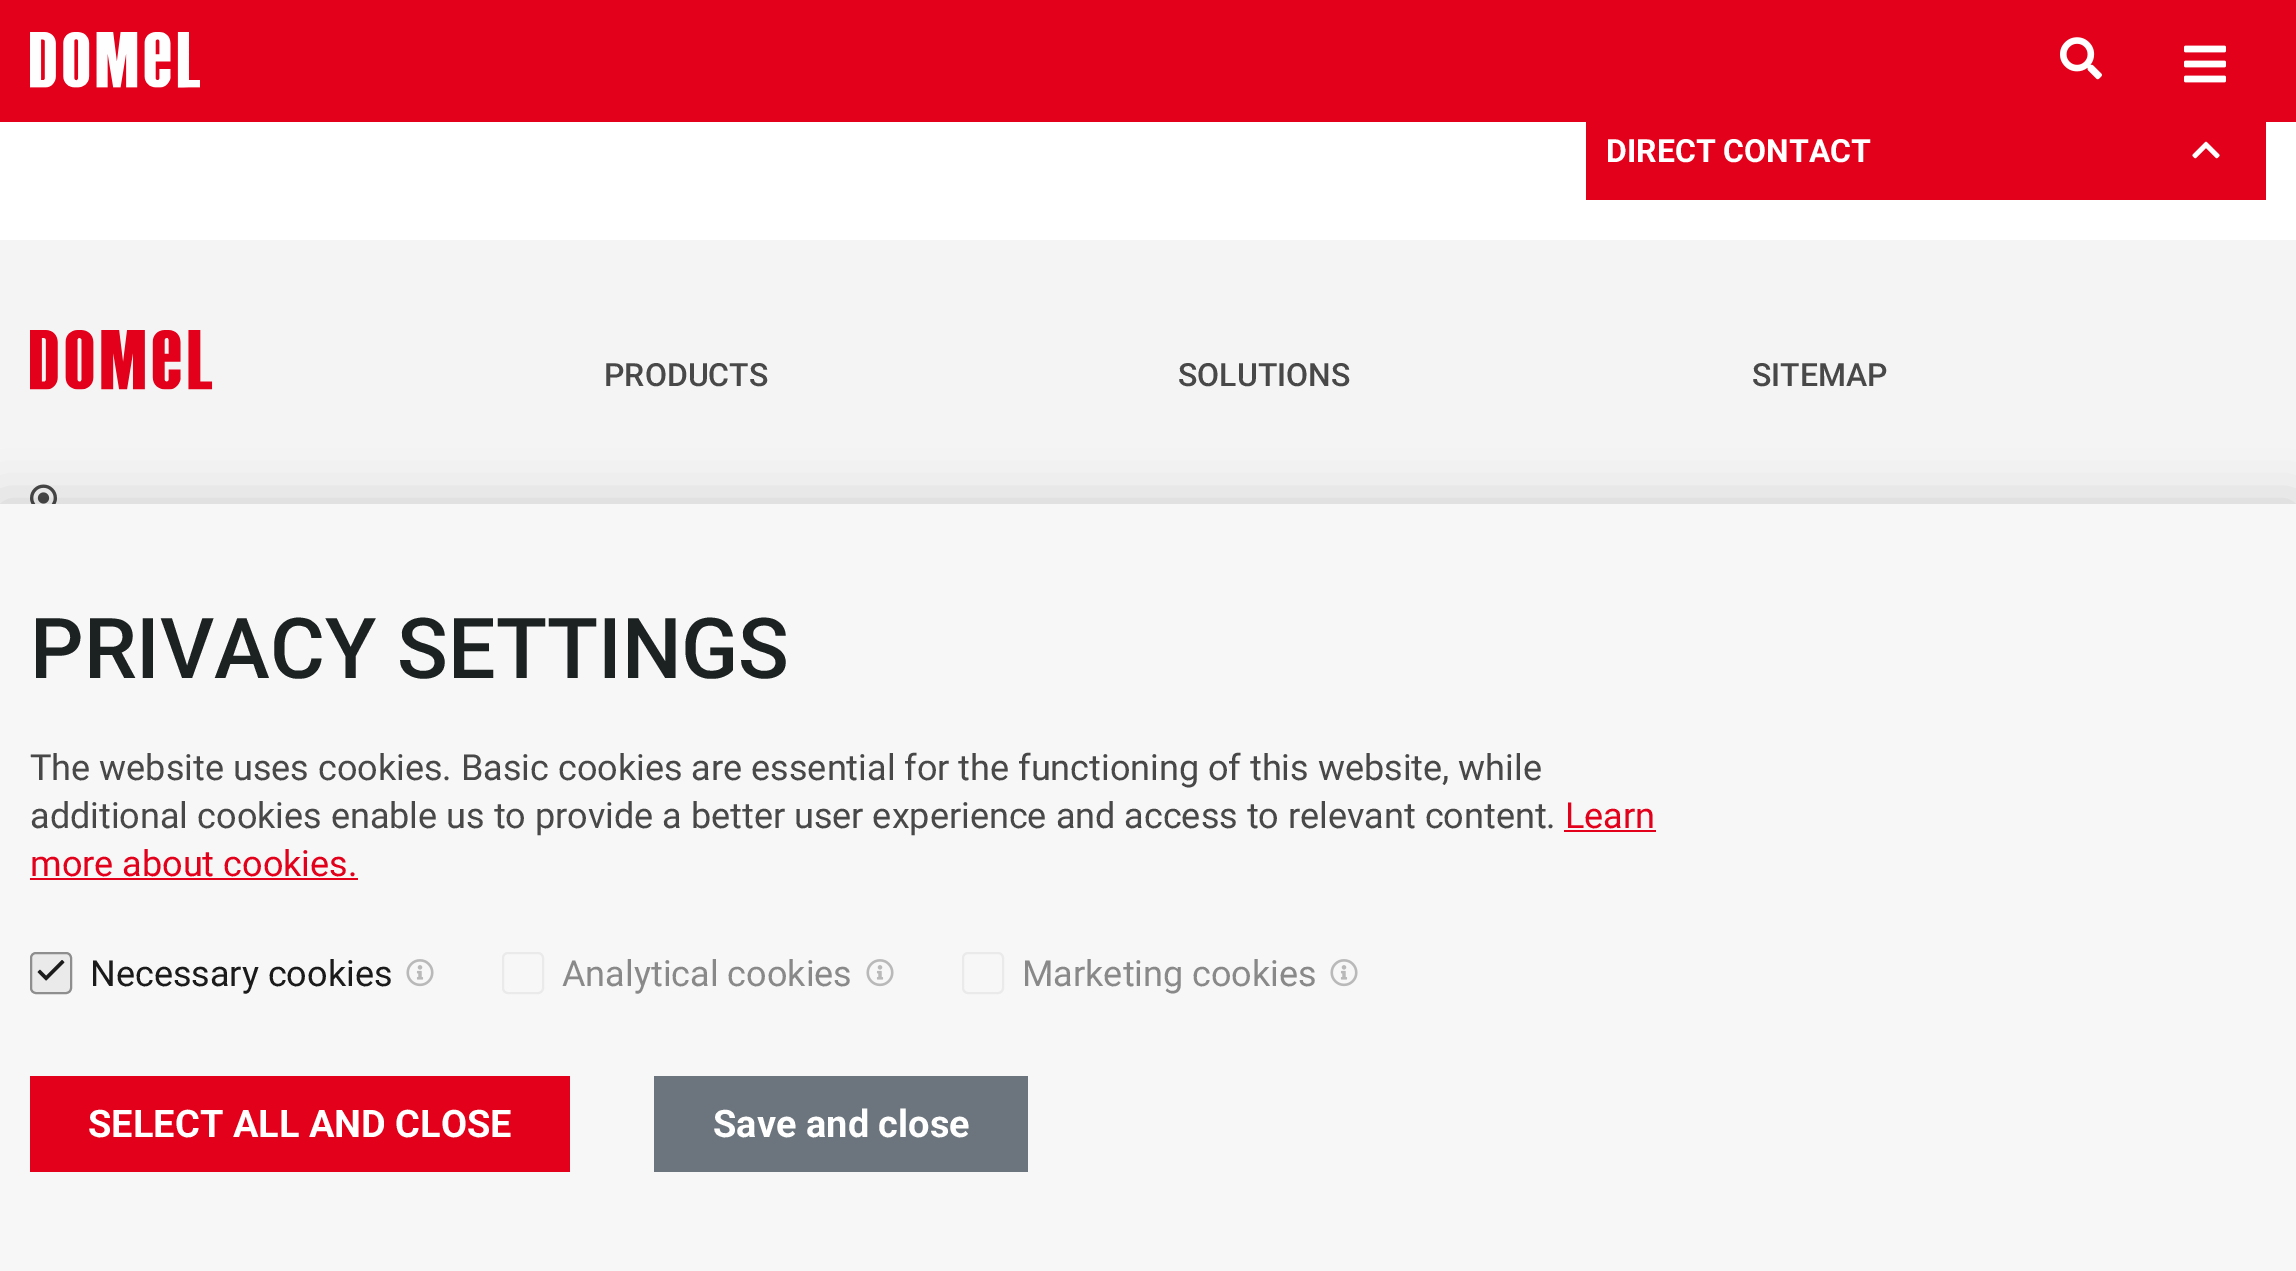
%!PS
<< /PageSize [2296 1271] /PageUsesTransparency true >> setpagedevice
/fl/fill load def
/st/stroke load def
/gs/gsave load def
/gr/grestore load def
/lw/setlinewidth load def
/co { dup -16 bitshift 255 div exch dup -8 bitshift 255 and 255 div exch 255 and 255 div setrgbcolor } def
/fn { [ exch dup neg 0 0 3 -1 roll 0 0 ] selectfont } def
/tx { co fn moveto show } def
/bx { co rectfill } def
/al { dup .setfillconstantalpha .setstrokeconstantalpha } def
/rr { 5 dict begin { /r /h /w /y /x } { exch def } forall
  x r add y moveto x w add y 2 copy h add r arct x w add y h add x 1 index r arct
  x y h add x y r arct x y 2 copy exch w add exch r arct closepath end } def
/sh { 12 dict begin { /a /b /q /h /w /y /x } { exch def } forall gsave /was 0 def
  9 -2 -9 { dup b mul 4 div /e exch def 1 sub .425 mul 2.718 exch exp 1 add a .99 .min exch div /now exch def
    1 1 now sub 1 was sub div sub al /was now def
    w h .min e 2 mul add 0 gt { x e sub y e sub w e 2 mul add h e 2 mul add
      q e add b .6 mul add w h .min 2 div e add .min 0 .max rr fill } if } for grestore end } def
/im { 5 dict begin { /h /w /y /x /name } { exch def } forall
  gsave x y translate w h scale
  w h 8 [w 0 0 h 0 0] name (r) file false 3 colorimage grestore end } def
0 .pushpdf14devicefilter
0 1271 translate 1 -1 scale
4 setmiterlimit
0 0 2296 1271 16#FFFFFF bx
0 0 2296 122 16#E2001A bx
(media/1.raw) 30 32 170 56 im
(media/2.raw) 2060 37 42 43 im
(media/3.raw) 2184 45 42 38 im
1586 122 680 78 16#E2001A bx
(media/4.raw) 2192 141 28 18 im
0 240 2296 264 16#F4F4F4 bx
(media/5.raw) 30 330 183 60 im
(media/6.raw) 30 484 27 20 im
16#000000 co
0 504 2296 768 0 25 .15 sh
0 504 2296 767 16#F7F7F7 bx
1564 830 92 2 16#E2001A bx
30 878 328 2 16#E2001A bx
16#EAEAEA co
31 953 40 40 5 rr gs fl gr
16#8E8E8E co
2 lw
st
(media/7.raw) 37 960 28 21 im
(media/8.raw) 406 959 28 28 im
16#EAEAEA co
503 953 40 40 5 rr st
(media/8.raw) 866 959 28 28 im
963 953 40 40 5 rr st
(media/8.raw) 1330 959 28 28 im
30 1076 540 96 16#E2001A bx
654 1076 374 96 16#6C757D bx
(DIRECT CONTACT) 1606 162 /Roboto-Bold 32 16#FFFFFF tx
(PRODUCTS) 604 386 /Roboto-Medium 32 16#484848 tx
(SOLUTIONS) 1178 386 /Roboto-Medium 32 16#484848 tx
(SITEMAP) 1752 386 /Roboto-Medium 32 16#484848 tx
(PRIVACY SETTINGS) 30 678 /Roboto-Medium 84 16#1C2122 tx
(The website uses cookies. Basic cookies are essential for the functioning of this website, while) 30 780 /Roboto-Regular 36 16#484848 tx
(additional cookies enable us to provide a better user experience and access to relevant content.) 30 828 /Roboto-Regular 36 16#484848 tx
(Learn) 1565 828 /Roboto-Regular 36 16#E2001A tx
(more about cookies.) 30 876 /Roboto-Regular 36 16#E2001A tx
(Necessary cookies) 90 986 /Roboto-Regular 36 16#1B1B1B tx
(Analytical cookies) 562 986 /Roboto-Regular 36 16#898989 tx
(Marketing cookies) 1022 986 /Roboto-Regular 36 16#898989 tx
(SELECT ALL AND CLOSE) 88 1137 /Roboto-Bold 38 16#FFFFFF tx
(Save and close) 713 1137 /Roboto-Bold 38 16#FFFFFF tx
.poppdf14devicefilter showpage
